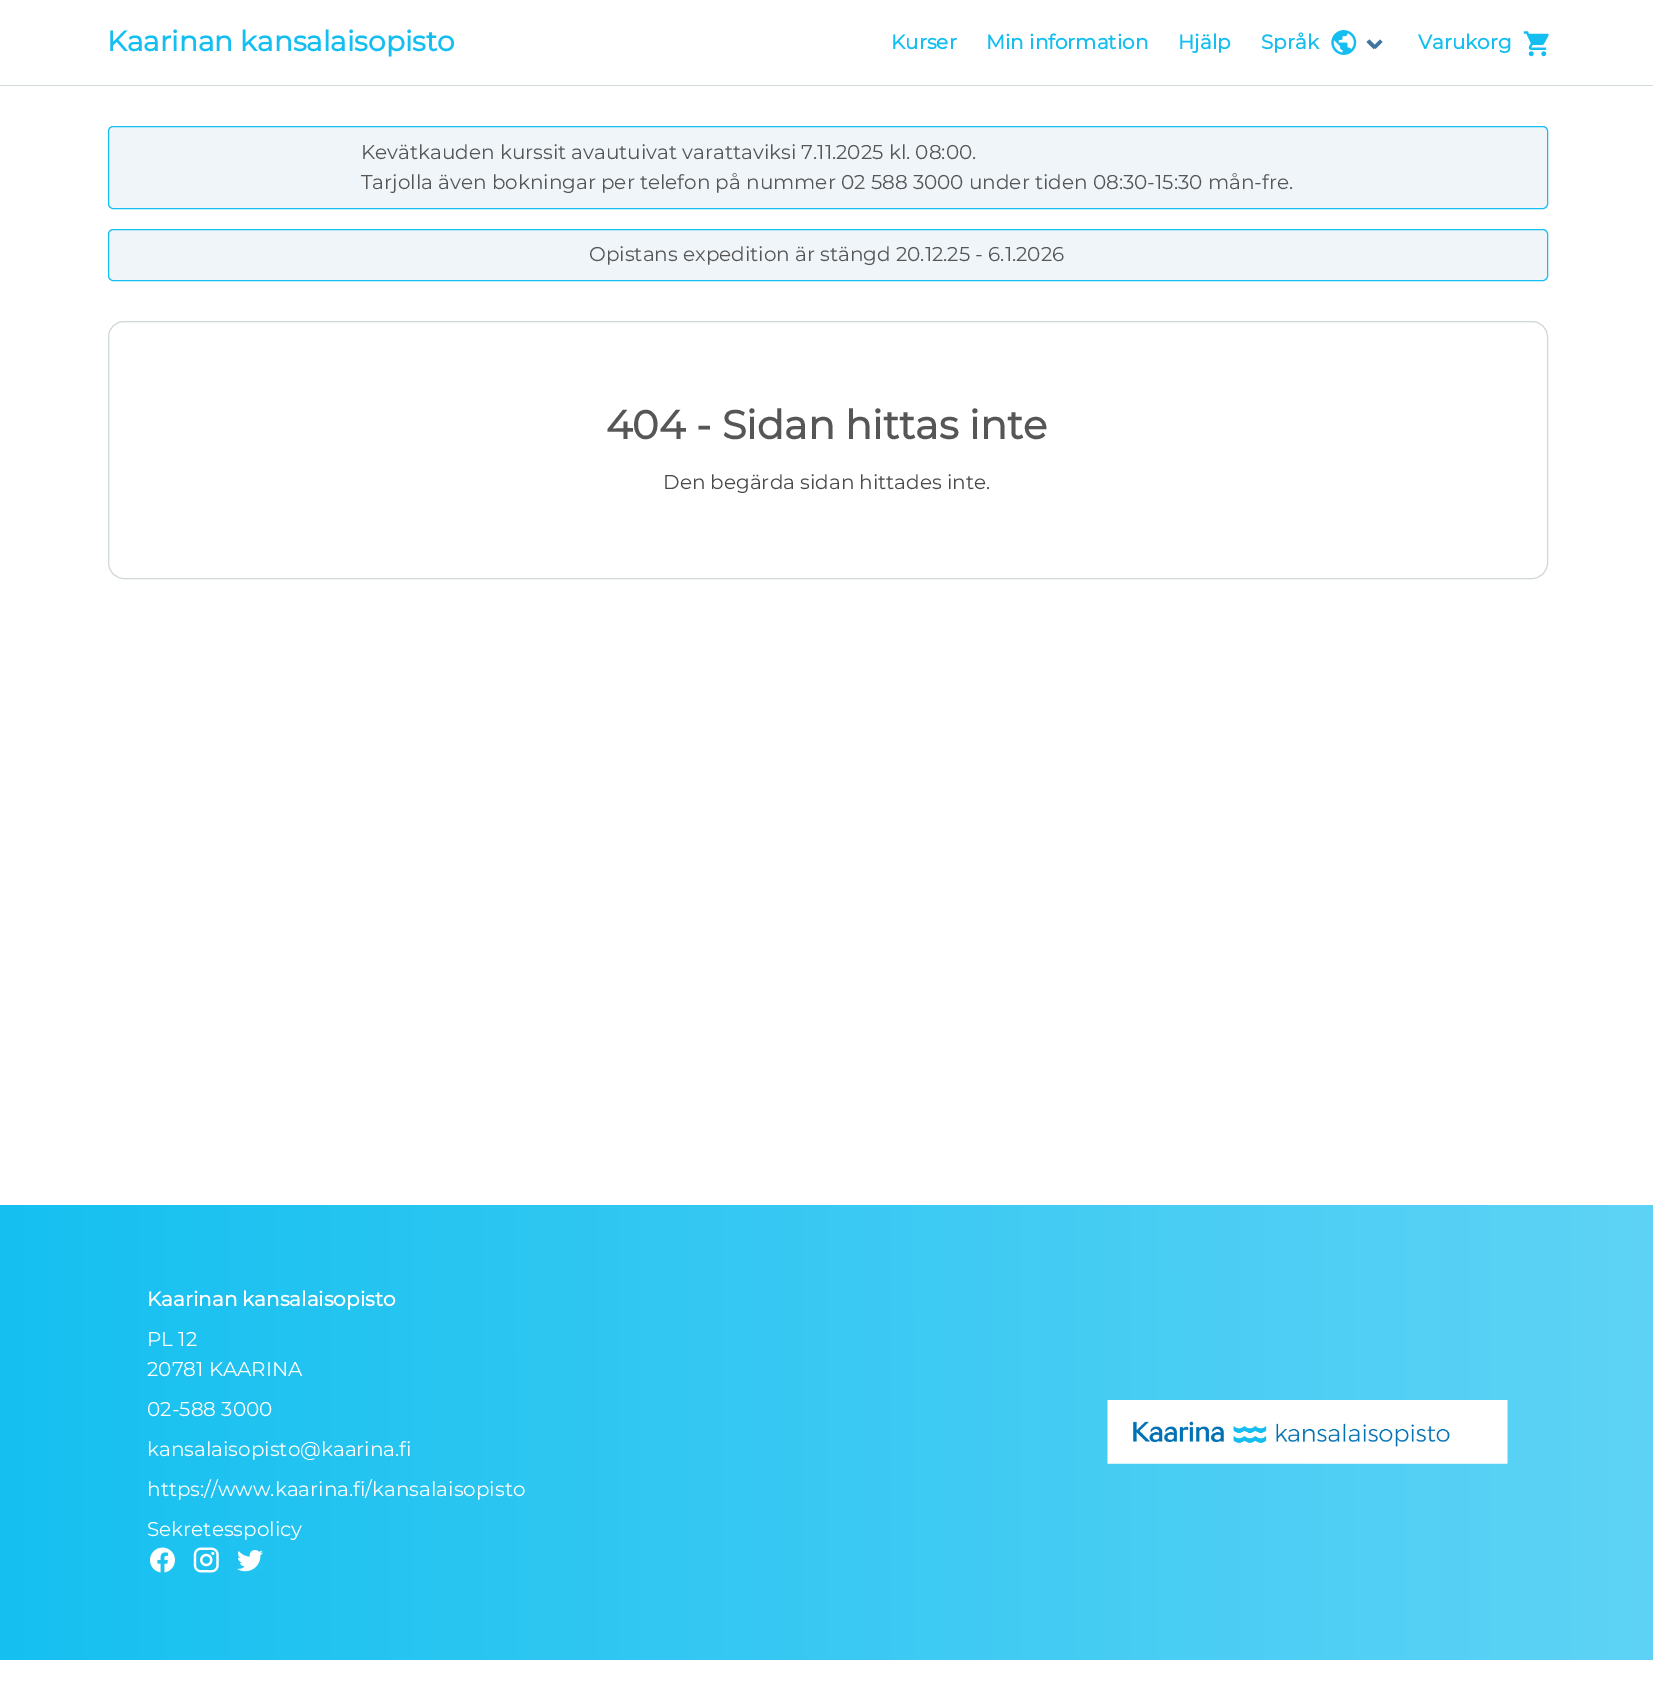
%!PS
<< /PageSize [1653 1696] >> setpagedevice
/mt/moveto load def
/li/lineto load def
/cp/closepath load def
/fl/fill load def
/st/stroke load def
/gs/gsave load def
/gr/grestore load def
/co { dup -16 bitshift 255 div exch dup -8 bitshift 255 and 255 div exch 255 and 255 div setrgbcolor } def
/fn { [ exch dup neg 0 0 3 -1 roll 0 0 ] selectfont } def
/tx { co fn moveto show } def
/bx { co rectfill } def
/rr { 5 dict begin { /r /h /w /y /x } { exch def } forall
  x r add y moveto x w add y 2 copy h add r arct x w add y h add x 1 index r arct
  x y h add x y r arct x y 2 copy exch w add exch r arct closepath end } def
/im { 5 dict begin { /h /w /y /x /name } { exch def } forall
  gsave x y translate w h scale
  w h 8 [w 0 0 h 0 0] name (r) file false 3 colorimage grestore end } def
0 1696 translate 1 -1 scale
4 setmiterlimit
0 0 1653 1696 16#FFFFFF bx
0 85 1653 1 16#D0D9D2 bx
(media/1.raw) 1331 30 26 25 im
16#3F759E co
1373 46.5 mt 1380 39.5 li 1382.5 42 li 1375.5 49 li cp fl
1366.5 42 mt 1369.5 39.5 li 1376.5 46.5 li 1373.5 49 li cp fl
(media/2.raw) 1523 31 26 26 im
16#F0F5F9 co
108.5 126.5 1439 82 4.5 rr gs fl gr
16#15BEF0 co
st
16#F0F5F9 co
108.5 229.5 1439 51 4.5 rr gs fl gr
16#15BEF0 co
st
16#D0D9D2 co
108.5 321.5 1439 257 15.5 rr st
gs 0 1205 mt 1653 1205 li 1653 1660 li 0 1660 li cp clip newpath
<< /ShadingType 2 /ColorSpace /DeviceRGB /Coords [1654 1432 0 1433] /Extend [true true] /Function << /FunctionType 2 /Domain [0 1] /C0 [.369 .827 .961] /C1 [.082 .753 .941] /N 1 >> >> shfill gr
(media/3.raw) 150 1547 25 26 im
(media/4.raw) 193 1547 26 26 im
(media/5.raw) 237 1550 26 22 im
(media/6.raw) 1107 1400 401 64 im
(Kaarinan kansalaisopisto) 107 51 /Montserrat-Bold 28 16#15BEF0 tx
(Kurser) 891 49 /Montserrat-Bold 20 16#15BEF0 tx
(Min information) 986 49 /Montserrat-Bold 20 16#15BEF0 tx
(Hjälp) 1178 49 /Montserrat-Bold 20 16#15BEF0 tx
(Språk) 1261 49 /Montserrat-Bold 20 16#15BEF0 tx
(Varukorg) 1418 49 /Montserrat-Bold 20 16#15BEF0 tx
(Kevätkauden kurssit avautuivat varattaviksi 7.11.2025 kl. 08:00.) 361 159 /Montserrat-Regular 20 16#565656 tx
(Tarjolla även bokningar per telefon på nummer 02 588 3000 under tiden 08:30-15:30 mån-fre.) 361 189 /Montserrat-Regular 20 16#565656 tx
(Opistans expedition är stängd 20.12.25 - 6.1.2026) 589 261 /Montserrat-Regular 20 16#565656 tx
(404 - Sidan hittas inte) 606 439 /Montserrat-Bold 40 16#565656 tx
(Den begärda sidan hittades inte.) 663 489 /Montserrat-Regular 20 16#4A4A4A tx
(Kaarinan kansalaisopisto) 147 1306 /Montserrat-Bold 20 16#FFFFFF tx
(PL 12) 147 1346 /Montserrat-Regular 20 16#FFFFFF tx
(20781 KAARINA) 147 1376 /Montserrat-Regular 20 16#FFFFFF tx
(02-588 3000) 147 1416 /Montserrat-Regular 20 16#FFFFFF tx
(kansalaisopisto@kaarina.fi) 147 1456 /Montserrat-Regular 20 16#FFFFFF tx
(https://www.kaarina.fi/kansalaisopisto) 147 1496 /Montserrat-Regular 20 16#FFFFFF tx
(Sekretesspolicy) 147 1536 /Montserrat-Regular 20 16#FFFFFF tx
showpage
